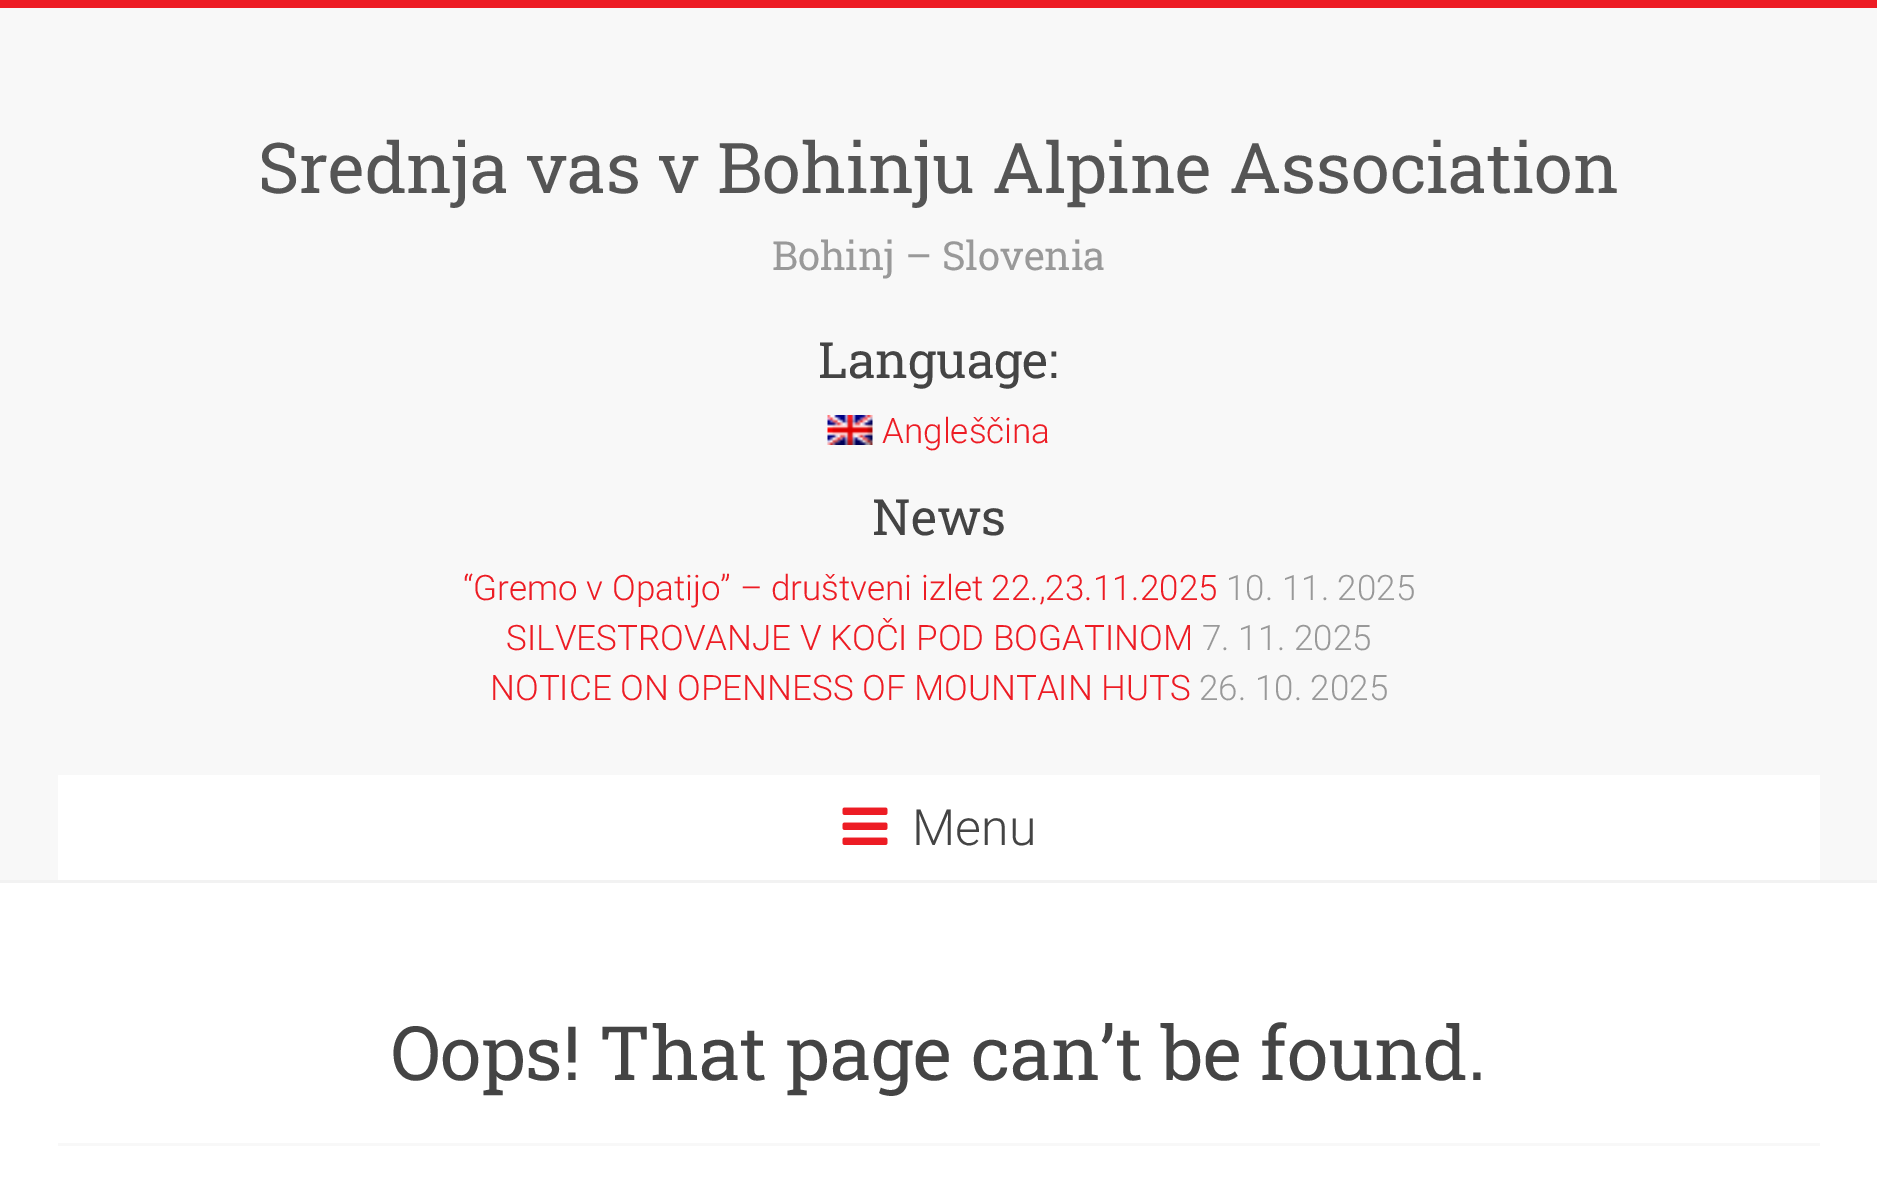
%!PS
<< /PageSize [1877 1186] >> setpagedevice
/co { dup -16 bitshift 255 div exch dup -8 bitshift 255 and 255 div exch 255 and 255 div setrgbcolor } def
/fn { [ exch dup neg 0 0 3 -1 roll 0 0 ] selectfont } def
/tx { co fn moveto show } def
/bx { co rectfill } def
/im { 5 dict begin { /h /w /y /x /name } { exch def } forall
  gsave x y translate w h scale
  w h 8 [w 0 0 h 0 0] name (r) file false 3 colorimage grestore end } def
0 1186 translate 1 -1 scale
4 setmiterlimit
0 0 1877 1186 16#FFFFFF bx
0 0 1877 8 16#ED1C24 bx
0 8 1877 872 16#F8F8F8 bx
0 880 1877 3 16#F2F2F2 bx
(media/1.raw) 827 415 46 30 im
58 775 1762 105 16#FFFFFF bx
(media/2.raw) 842 807 46 38 im
58 1143 1762 3 16#F8F8F8 bx
(Srednja vas v Bohinju Alpine Association) 258 193 /RobotoSlab-Regular 70 16#555555 tx
(Bohinj – Slovenia) 772 270 /RobotoSlab-Regular 40 16#999999 tx
(Language:) 818 378 /RobotoSlab-Regular 50 16#444444 tx
(Angleščina) 882 443 /Roboto-Light 35 16#ED1C24 tx
(News) 872 535 /RobotoSlab-Regular 50 16#444444 tx
(“Gremo v Opatijo” – društveni izlet 22.,23.11.2025) 463 600 /Roboto-Light 35 16#ED1C24 tx
(10. 11. 2025) 1226 600 /Roboto-Light 35 16#999999 tx
(SILVESTROVANJE V KOČI POD BOGATINOM) 506 650 /Roboto-Light 35 16#ED1C24 tx
(7. 11. 2025) 1202 650 /Roboto-Light 35 16#999999 tx
(NOTICE ON OPENNESS OF MOUNTAIN HUTS) 490 700 /Roboto-Light 35 16#ED1C24 tx
(26. 10. 2025) 1199 700 /Roboto-Light 35 16#999999 tx
(Menu) 912 845 /Roboto-Light 50 16#444444 tx
(Oops! That page can’t be found.) 391 1080 /RobotoSlab-Regular 75 16#444444 tx
showpage
